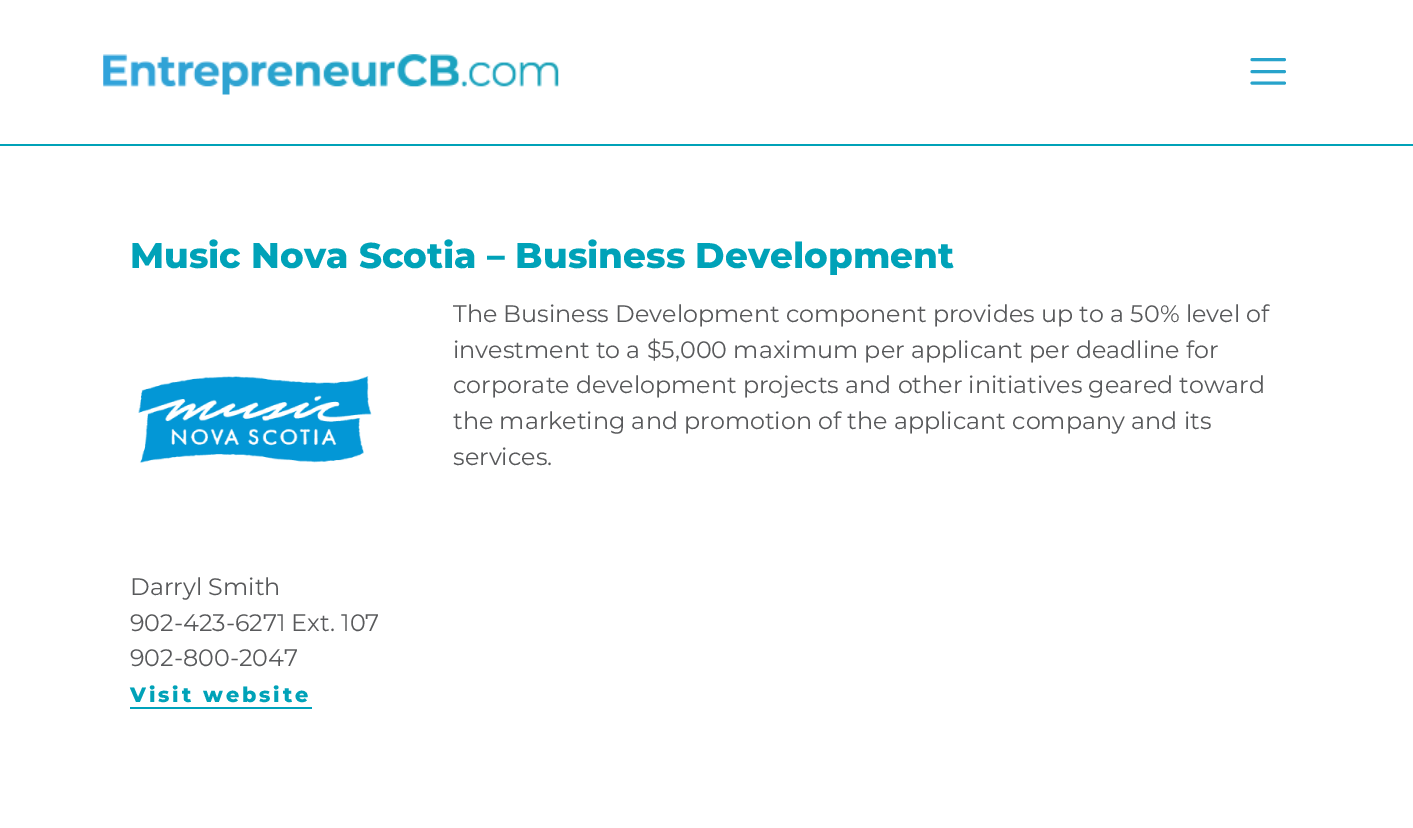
%!PS
<< /PageSize [1413 828] >> setpagedevice
/mt/moveto load def
/li/lineto load def
/st/stroke load def
/lw/setlinewidth load def
/co { dup -16 bitshift 255 div exch dup -8 bitshift 255 and 255 div exch 255 and 255 div setrgbcolor } def
/fn { [ exch dup neg 0 0 3 -1 roll 0 0 ] selectfont } def
/tx { co fn moveto show } def
/bx { co rectfill } def
/im { 5 dict begin { /h /w /y /x /name } { exch def } forall
  gsave x y translate w h scale
  w h 8 [w 0 0 h 0 0] name (r) file false 3 colorimage grestore end } def
0 828 translate 1 -1 scale
4 setmiterlimit
0 0 1413 828 16#FFFFFF bx
0 144 1413 2 16#00A2B8 bx
(media/1.raw) 103 54 456 41 im
16#27A3CB co
3 lw
1 setlinecap
1252 59.5 mt 1284.5 59.5 li 1252 71.5 mt 1284.5 71.5 li 1252 83 mt 1284.5 83 li st
(media/2.raw) 138 376 234 87 im
130 707 182 2 16#00A2BB bx
(Music Nova Scotia – Business Development) 130 268 /Montserrat-ExtraBold 35.7 16#00A2B8 tx
(The Business Development component provides up to a 50% level of) 453 322 /Montserrat-Regular 23.8 16#58595B tx
(investment to a $5,000 maximum per applicant per deadline for) 453 358 /Montserrat-Regular 23.8 16#58595B tx
(corporate development projects and other initiatives geared toward) 453 393 /Montserrat-Regular 23.8 16#58595B tx
(the marketing and promotion of the applicant company and its) 453 429 /Montserrat-Regular 23.8 16#58595B tx
(services.) 453 465 /Montserrat-Regular 23.8 16#58595B tx
(Darryl Smith) 130 595 /Montserrat-Regular 23.8 16#58595B tx
(902-423-6271 Ext. 107) 130 631 /Montserrat-Regular 23.8 16#58595B tx
(902-800-2047) 130 666 /Montserrat-Regular 23.8 16#58595B tx
/Montserrat-ExtraBold 20.75 fn
16#00A2B8 co
130 702 mt 2.9 0 (Visit website) ashow
showpage
